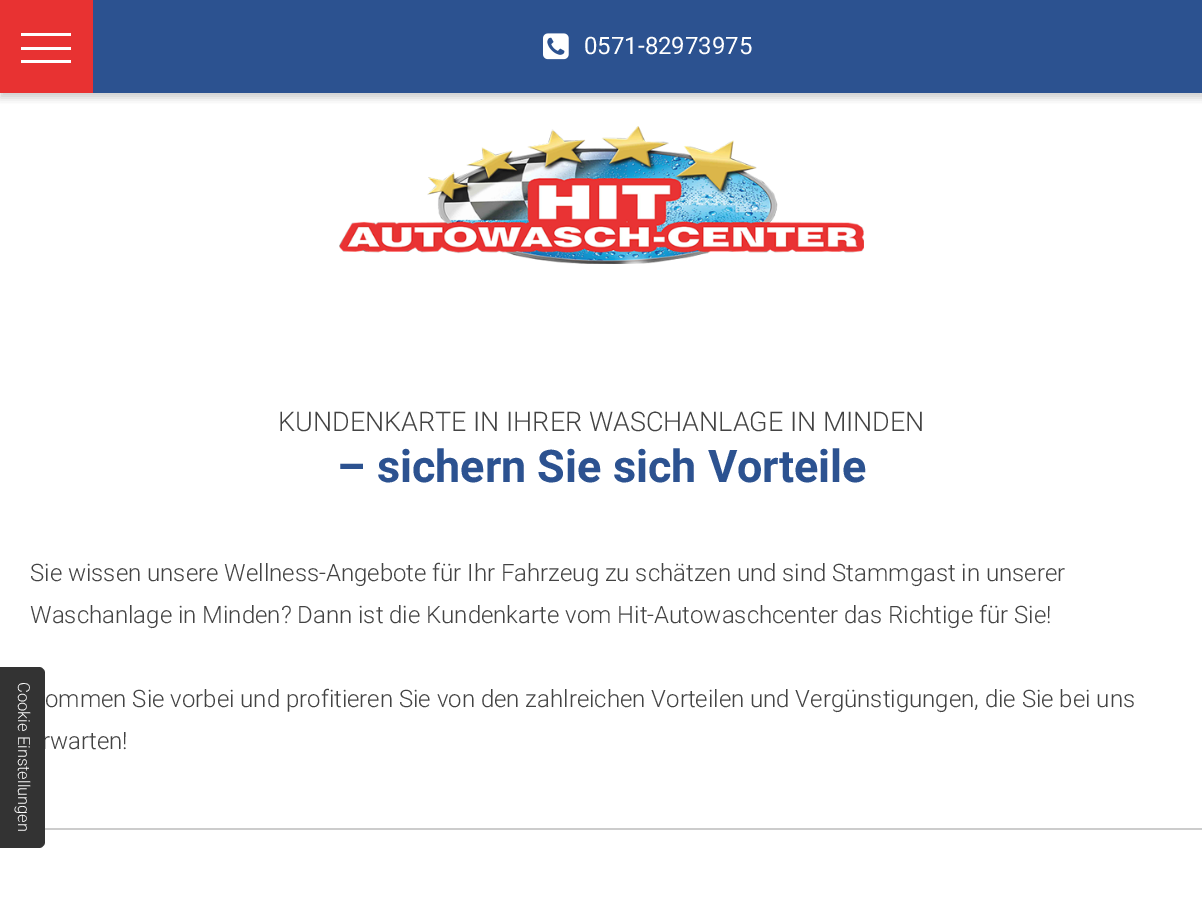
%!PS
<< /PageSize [1202 915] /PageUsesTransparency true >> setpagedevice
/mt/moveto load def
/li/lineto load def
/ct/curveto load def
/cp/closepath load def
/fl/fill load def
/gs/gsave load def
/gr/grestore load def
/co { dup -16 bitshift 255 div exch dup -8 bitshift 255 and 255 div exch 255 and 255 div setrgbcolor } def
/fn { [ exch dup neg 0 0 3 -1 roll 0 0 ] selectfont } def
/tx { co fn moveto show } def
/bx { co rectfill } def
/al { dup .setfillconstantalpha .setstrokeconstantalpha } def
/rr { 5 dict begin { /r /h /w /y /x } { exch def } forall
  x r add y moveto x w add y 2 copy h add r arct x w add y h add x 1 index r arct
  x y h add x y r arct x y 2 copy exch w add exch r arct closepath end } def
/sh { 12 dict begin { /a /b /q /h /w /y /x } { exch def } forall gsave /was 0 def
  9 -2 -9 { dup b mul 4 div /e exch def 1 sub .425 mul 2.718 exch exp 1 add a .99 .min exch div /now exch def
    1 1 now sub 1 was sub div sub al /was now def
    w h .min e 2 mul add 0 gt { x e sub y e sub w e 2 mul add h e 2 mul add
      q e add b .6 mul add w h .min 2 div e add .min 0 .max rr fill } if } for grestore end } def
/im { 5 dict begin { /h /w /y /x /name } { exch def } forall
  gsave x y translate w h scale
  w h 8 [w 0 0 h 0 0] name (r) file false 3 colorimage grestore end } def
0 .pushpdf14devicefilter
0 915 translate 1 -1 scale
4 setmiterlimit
0 0 1202 915 16#FFFFFF bx
0 0 93 93 16#E83232 bx
21 33 50 3 16#FFFFFF bx
21 47 50 3 16#FFFFFF bx
21 60 50 3 16#FFFFFF bx
93 0 1109 93 16#2C5290 bx
(media/1.raw) 543 33 26 27 im
gs
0 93 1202 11 rectclip
16#434343 co
0 5 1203 93 0 4 .25 sh
gr
(media/2.raw) 339 126 525 138 im
45 828 1157 2 16#CCCCCC bx
(0571-82973975) 584 54 /Roboto-Regular 24 16#FFFFFF tx
(KUNDENKARTE IN IHRER WASCHANLAGE IN MINDEN) 278 431 /Roboto-Light 27 16#434343 tx
(– sichern Sie sich Vorteile) 337 482 /Roboto-Bold 45 16#2C5290 tx
(Sie wissen unsere Wellness-Angebote für Ihr Fahrzeug zu schätzen und sind Stammgast in unserer) 30 581 /Roboto-Light 24 16#434343 tx
(Waschanlage in Minden? Dann ist die Kundenkarte vom Hit-Autowaschcenter das Richtige für Sie!) 30 623 /Roboto-Light 24 16#434343 tx
(ommen Sie vorbei und profitieren Sie von den zahlreichen Vorteilen und Vergünstigungen, die Sie bei uns) 45 707 /Roboto-Light 24 16#434343 tx
(rwarten!) 42 749 /Roboto-Light 24 16#434343 tx
16#333333 co
45 673 mt 45 842 li 45 845 42 848 39 848 ct 0 848 li 0 667 li 39 667 li 42 667 45 670 45 673 ct cp fl
/Roboto-Light 16.5 fn
16#FFFFFF co
gs 18 682 translate 90 rotate 0 0 mt (Cookie Einstellungen) show gr
.poppdf14devicefilter showpage
